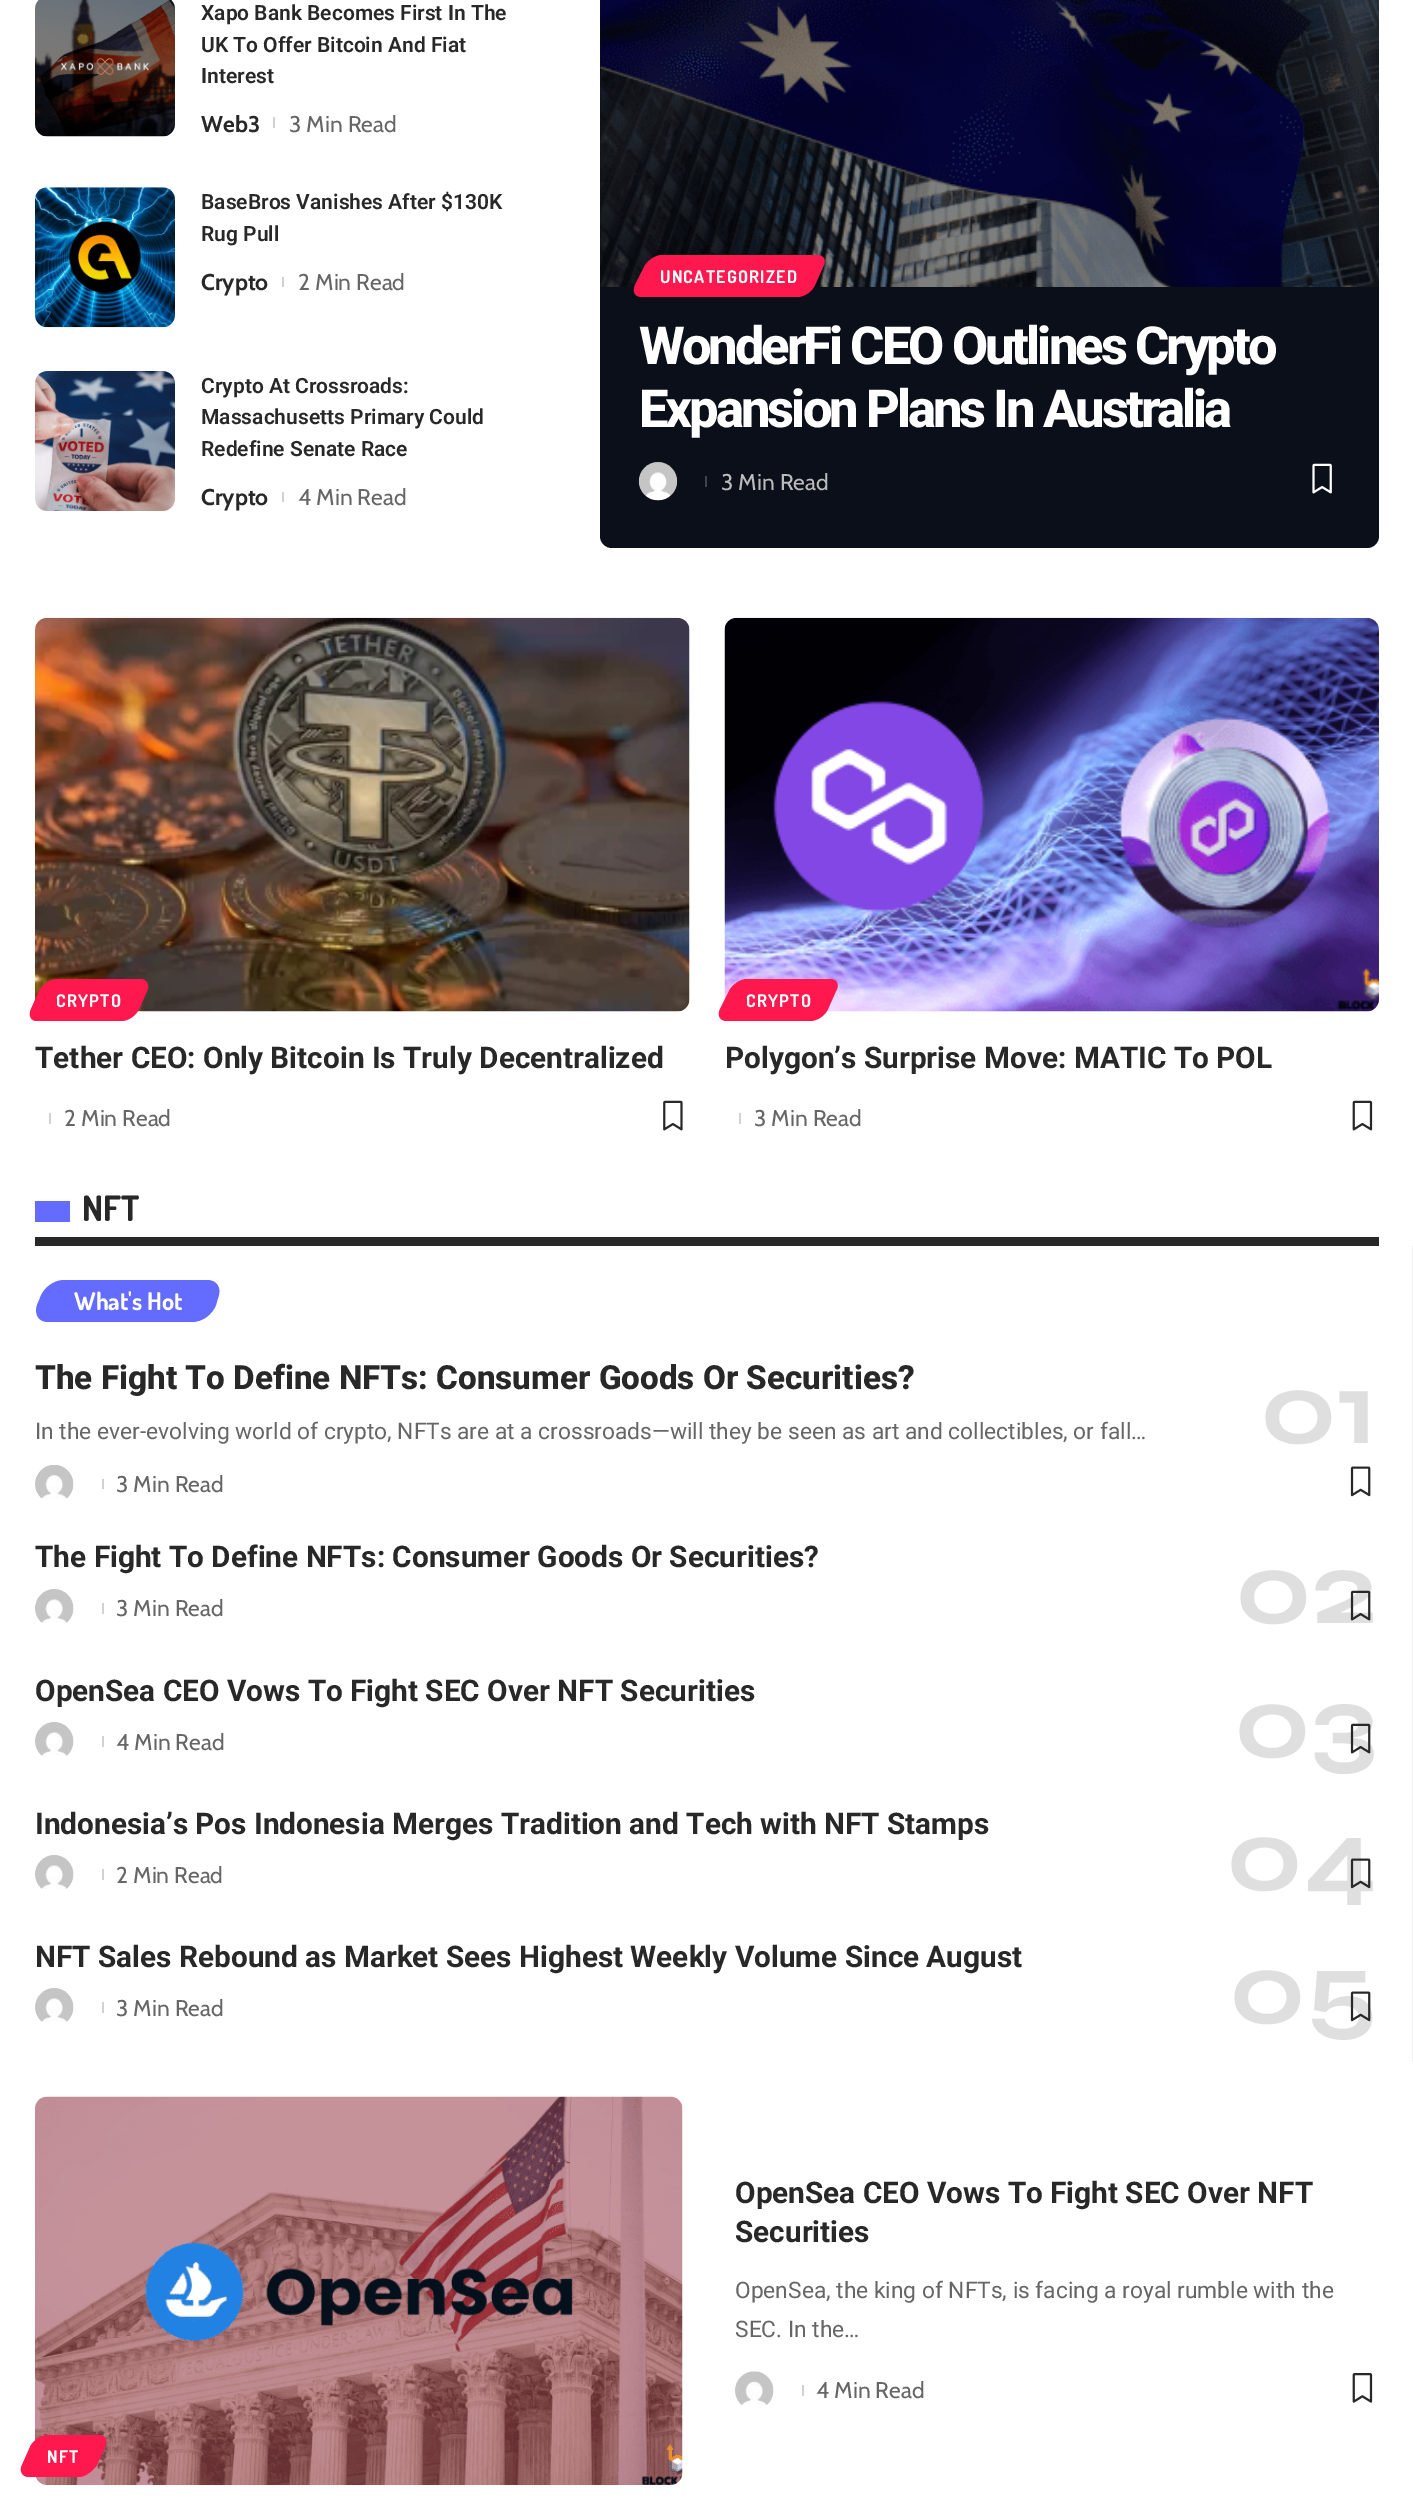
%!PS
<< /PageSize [1413 2516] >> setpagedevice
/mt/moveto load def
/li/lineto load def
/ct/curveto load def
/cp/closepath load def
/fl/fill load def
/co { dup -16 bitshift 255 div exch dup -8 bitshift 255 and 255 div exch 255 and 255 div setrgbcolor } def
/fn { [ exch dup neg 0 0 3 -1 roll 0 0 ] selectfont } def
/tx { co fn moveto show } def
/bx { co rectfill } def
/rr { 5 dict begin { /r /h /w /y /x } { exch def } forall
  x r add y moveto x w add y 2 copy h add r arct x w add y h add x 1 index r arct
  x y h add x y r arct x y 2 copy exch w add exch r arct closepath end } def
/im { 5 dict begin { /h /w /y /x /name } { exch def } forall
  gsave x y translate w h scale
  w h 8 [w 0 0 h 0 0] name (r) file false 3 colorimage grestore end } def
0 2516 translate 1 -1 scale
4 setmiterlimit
0 0 1413 2516 16#FFFFFF bx
(media/1.raw) 35 0 140 137 im
273 117 2 11 16#D1D1D1 bx
(media/2.raw) 35 187 140 141 im
282 277 2 10 16#D1D1D1 bx
(media/3.raw) 35 371 140 140 im
282 492 2 10 16#D1D1D1 bx
16#0B0F19 co
600 -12 779 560 12 rr fl
(media/4.raw) 600 0 779 287 im
16#FF184E co
662 255 mt 817 255 li 824 255 827 261 823 267 ct 815 285 li 812 292 804 297 797 297 ct 642 297 li 635 297 632 292 635 285 ct 644 267 li 647 261 655 255 662 255 ct cp fl
(media/5.raw) 638 462 40 39 im
705 476 2 11 16#40434A bx
(media/6.raw) 1312 463 20 31 im
(media/7.raw) 35 617 655 395 im
16#FF184E co
57 979 mt 140 979 li 147 979 150 985 147 991 ct 139 1009 li 136 1016 128 1021 121 1021 ct 37 1021 li 31 1021 28 1016 31 1009 ct 39 991 li 42 985 50 979 57 979 ct cp fl
49 1113 2 11 16#D1D1D1 bx
(media/8.raw) 663 1100 20 31 im
(media/9.raw) 724 617 655 395 im
16#FF184E co
747 979 mt 830 979 li 837 979 840 985 836 991 ct 828 1009 li 825 1016 817 1021 810 1021 ct 727 1021 li 720 1021 717 1016 720 1009 ct 729 991 li 732 985 740 979 747 979 ct cp fl
739 1113 2 11 16#D1D1D1 bx
(media/10.raw) 1352 1100 21 31 im
35 1237 1344 9 16#282828 bx
35 1201 35 21 16#646CFF bx
1412 1246 1 816 16#F0F0F0 bx
16#646CFF co
64 1280 mt 207 1280 li 217 1280 222 1288 218 1298 ct 216 1305 li 212 1315 202 1322 192 1322 ct 48 1322 li 39 1322 34 1315 37 1305 ct 40 1298 li 43 1288 54 1280 64 1280 ct cp fl
(media/11.raw) 35 1465 39 34 im
102 1479 2 10 16#D1D1D1 bx
(media/12.raw) 1350 1466 21 31 im
(media/13.raw) 35 1589 39 34 im
102 1603 2 11 16#D1D1D1 bx
(media/13.raw) 35 1722 39 34 im
102 1736 2 11 16#D1D1D1 bx
(media/16.raw) 35 1855 39 34 im
102 1869 2 11 16#D1D1D1 bx
(media/13.raw) 35 1988 39 34 im
102 2002 2 11 16#D1D1D1 bx
(media/19.raw) 735 2371 39 34 im
802 2385 2 11 16#D1D1D1 bx
(media/20.raw) 1352 2373 21 30 im
(media/21.raw) 35 2096 648 389 im
16#FF184E co
48 2435 mt 98 2435 li 105 2435 108 2440 105 2447 ct 97 2465 li 93 2471 85 2477 79 2477 ct 29 2477 li 22 2477 19 2471 22 2465 ct 30 2447 li 33 2440 42 2435 48 2435 ct cp fl
(Xapo Bank Becomes First In The) 201 20 /Roboto-SemiBold 21 16#282828 tx
(UK To Offer Bitcoin And Fiat) 201 52 /Roboto-SemiBold 21 16#282828 tx
(Interest) 201 83 /Roboto-SemiBold 21 16#282828 tx
(Web3) 201 132 /Cabin-Bold 22.75 16#282828 tx
(3 Min Read) 289 132 /Cabin-Regular 22.75 16#666666 tx
(BaseBros Vanishes After $130K) 201 209 /Roboto-SemiBold 21 16#282828 tx
(Rug Pull) 201 241 /Roboto-SemiBold 21 16#282828 tx
(Crypto) 201 290 /Cabin-Bold 22.75 16#282828 tx
(2 Min Read) 298 290 /Cabin-Regular 22.75 16#666666 tx
(Crypto At Crossroads:) 201 393 /Roboto-SemiBold 21 16#282828 tx
(Massachusetts Primary Could) 201 424 /Roboto-SemiBold 21 16#282828 tx
(Redefine Senate Race) 201 456 /Roboto-SemiBold 21 16#282828 tx
(Crypto) 201 505 /Cabin-Bold 22.75 16#282828 tx
(4 Min Read) 298 505 /Cabin-Regular 22.75 16#666666 tx
/Dosis-Bold 17.5 fn
16#FFFFFF co
660 283 mt 1.25 0 (UNCATEGORIZED) ashow
/Roboto-ExtraBold 52.5 fn
639 364 mt -3 0 (WonderFi CEO Outlines Crypto) ashow
639 427 mt -3 0 (Expansion Plans In Australia) ashow
(3 Min Read) 721 490 /Cabin-Regular 22.75 16#BBBBBB tx
/Dosis-Bold 17.5 fn
16#FFFFFF co
56 1007 mt 1.25 0 (CRYPTO) ashow
(Tether CEO: Only Bitcoin Is Truly Decentralized) 35 1068 /Roboto-Bold 29.75 16#282828 tx
(2 Min Read) 64 1126 /Cabin-Regular 22.75 16#666666 tx
/Dosis-Bold 17.5 fn
16#FFFFFF co
746 1007 mt 1.25 0 (CRYPTO) ashow
(Polygon’s Surprise Move: MATIC To POL) 725 1068 /Roboto-Bold 29.75 16#282828 tx
(3 Min Read) 754 1126 /Cabin-Regular 22.75 16#666666 tx
(NFT) 82 1221 /Dosis-Bold 35 16#282828 tx
(What's Hot) 74 1310 /Dosis-Bold 24.5 16#FFFFFF tx
(The Fight To Define NFTs: Consumer Goods Or Securities?) 35 1389 /Roboto-ExtraBold 33.25 16#282828 tx
(01) 1260 1443 /Syne-Bold 104 16#DFDFDF tx
(In the ever-evolving world of crypto, NFTs are at a crossroads—will they be seen as art and collectibles, or fall…) 35 1439 /Roboto-Regular 22.75 16#666666 tx
(3 Min Read) 116 1492 /Cabin-Regular 22.75 16#666666 tx
(The Fight To Define NFTs: Consumer Goods Or Securities?) 35 1567 /Roboto-Bold 29.75 16#282828 tx
(02) 1235 1623 /Syne-Bold 104 16#DFDFDF tx
(3 Min Read) 116 1616 /Cabin-Regular 22.75 16#666666 tx
(media/14.raw) 1350 1590 21 31 im
(OpenSea CEO Vows To Fight SEC Over NFT Securities) 35 1701 /Roboto-Bold 29.75 16#282828 tx
(03) 1234 1757 /Syne-Bold 104 16#DFDFDF tx
(4 Min Read) 116 1750 /Cabin-Regular 22.75 16#666666 tx
(media/15.raw) 1350 1723 21 31 im
(Indonesia’s Pos Indonesia Merges Tradition and Tech with NFT Stamps) 35 1834 /Roboto-Bold 29.75 16#282828 tx
(04) 1226 1890 /Syne-Bold 104 16#DFDFDF tx
(2 Min Read) 116 1883 /Cabin-Regular 22.75 16#666666 tx
(media/17.raw) 1350 1858 21 31 im
(NFT Sales Rebound as Market Sees Highest Weekly Volume Since August) 35 1967 /Roboto-Bold 29.75 16#282828 tx
(05) 1229 2023 /Syne-Bold 104 16#DFDFDF tx
(3 Min Read) 116 2016 /Cabin-Regular 22.75 16#666666 tx
(media/18.raw) 1350 1991 21 31 im
(OpenSea CEO Vows To Fight SEC Over NFT) 735 2203 /Roboto-Bold 29.75 16#282828 tx
(Securities) 735 2242 /Roboto-Bold 29.75 16#282828 tx
(OpenSea, the king of NFTs, is facing a royal rumble with the) 735 2298 /Roboto-Regular 22.75 16#666666 tx
(SEC. In the…) 735 2337 /Roboto-Regular 22.75 16#666666 tx
(4 Min Read) 816 2398 /Cabin-Regular 22.75 16#666666 tx
/Dosis-Bold 17.5 fn
16#FFFFFF co
47 2463 mt 1.25 0 (NFT) ashow
showpage
